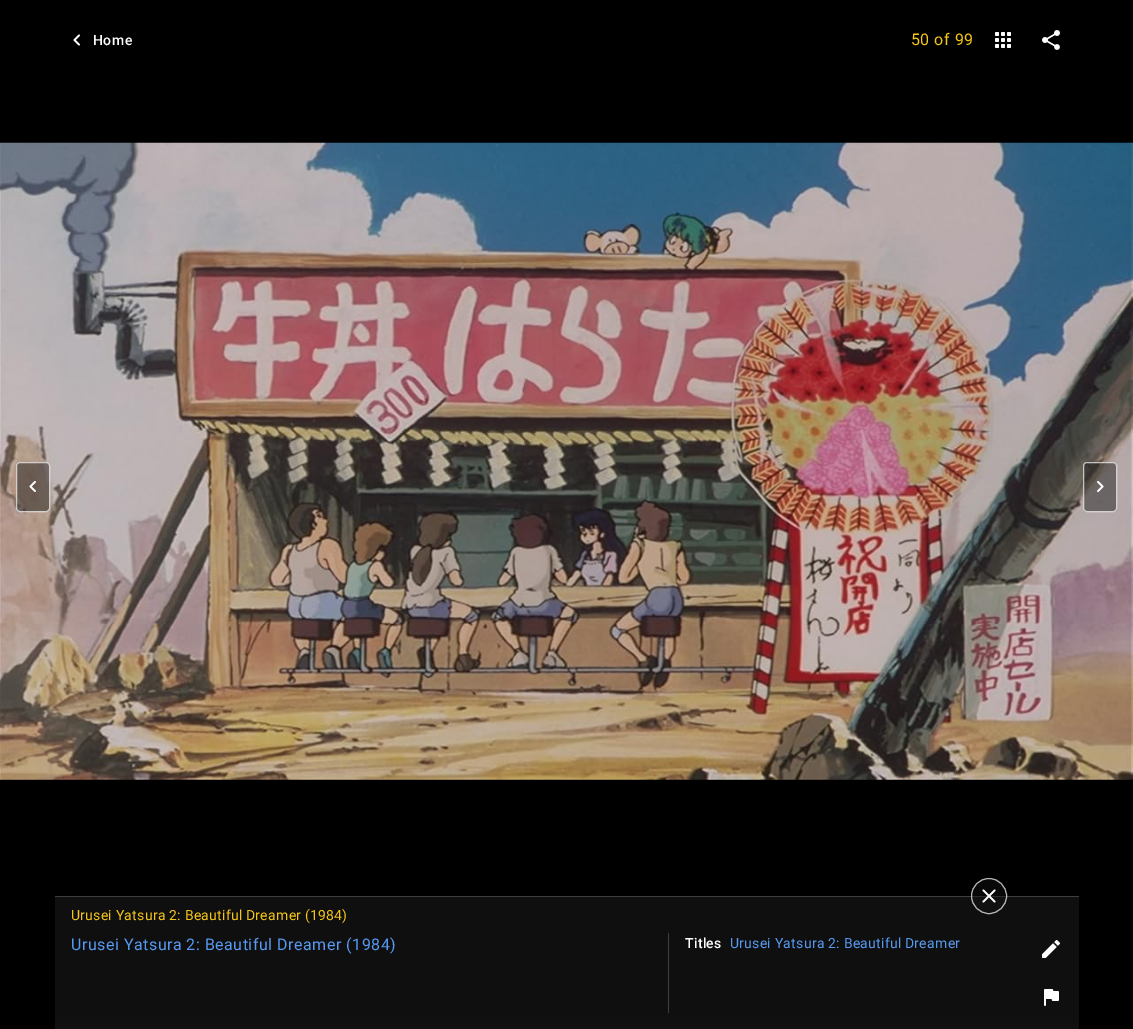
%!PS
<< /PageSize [1133 1029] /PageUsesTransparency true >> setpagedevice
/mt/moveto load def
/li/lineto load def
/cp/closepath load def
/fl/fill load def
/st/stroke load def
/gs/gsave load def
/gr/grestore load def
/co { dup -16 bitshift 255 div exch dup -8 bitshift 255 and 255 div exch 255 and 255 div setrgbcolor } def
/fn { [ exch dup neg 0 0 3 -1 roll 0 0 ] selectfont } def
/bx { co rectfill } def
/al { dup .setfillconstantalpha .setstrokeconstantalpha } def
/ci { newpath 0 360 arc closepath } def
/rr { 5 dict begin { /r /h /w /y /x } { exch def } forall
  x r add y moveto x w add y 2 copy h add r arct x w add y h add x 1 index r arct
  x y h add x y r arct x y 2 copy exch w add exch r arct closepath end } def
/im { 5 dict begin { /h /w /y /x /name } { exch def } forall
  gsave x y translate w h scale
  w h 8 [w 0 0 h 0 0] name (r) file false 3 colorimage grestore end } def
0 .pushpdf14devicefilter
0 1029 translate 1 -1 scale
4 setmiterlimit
0 0 1133 1029 16#000000 bx
(media/1.raw) 73 34 7 12 im
(media/2.raw) 995 32 16 16 im
(media/3.raw) 1042 30 18 20 im
(media/4.raw) 0 142 1133 638 im
0.45 al
16#121212 co
16 462 34 50 4 rr fl
0.7 al
16#FFFFFF co
16.5 462.5 33 49 3.5 rr st
1 al
(media/5.raw) 29 481 7 11 im
0.45 al
16#121212 co
1083 462 34 50 4 rr fl
0.7 al
16#FFFFFF co
1083.5 462.5 33 49 3.5 rr st
1 al
(media/6.raw) 1097 481 7 11 im
55 897 1024 116 16#0F0F0F bx
55 896 1024 1 16#3F3F3F bx
0.45 al
16#121212 co
989 896 18 ci fl
0.7 al
16#FFFFFF co
989 896 17.5 ci st
1 al
(media/7.raw) 982 889 14 14 im
668 933 1 80 16#3F3F3F bx
(media/8.raw) 1042 940 18 18 im
(media/9.raw) 1044 989 15 17 im
gs 55 1013 mt 1079 1013 li 1079 1029 li 55 1029 li cp clip newpath
<< /ShadingType 2 /ColorSpace /DeviceRGB /Coords [567 1029 567 1013] /Extend [true true] /Function << /FunctionType 2 /Domain [0 1] /C0 [.071 .071 .071] /C1 [.059 .059 .059] /N 1 >> >> shfill gr
/Roboto-Medium 14 fn
16#FFFFFF co
93 45 mt .5 0 (Home) ashow
/Roboto-Regular 16 fn
16#F5C518 co
911 45 mt .5 0 (50 of 99) ashow
/Roboto-Regular 14 fn
71 920 mt .25 0 (Urusei Yatsura 2: Beautiful Dreamer \(1984\)) ashow
/Roboto-Regular 16 fn
16#5799EF co
71 950 mt .5 0 (Urusei Yatsura 2: Beautiful Dreamer \(1984\)) ashow
/Roboto-Medium 14 fn
16#FFFFFF co
685 948 mt .25 0 (Titles) ashow
/Roboto-Regular 14 fn
16#5799EF co
730 948 mt .25 0 (Urusei Yatsura 2: Beautiful Dreamer) ashow
.poppdf14devicefilter showpage
